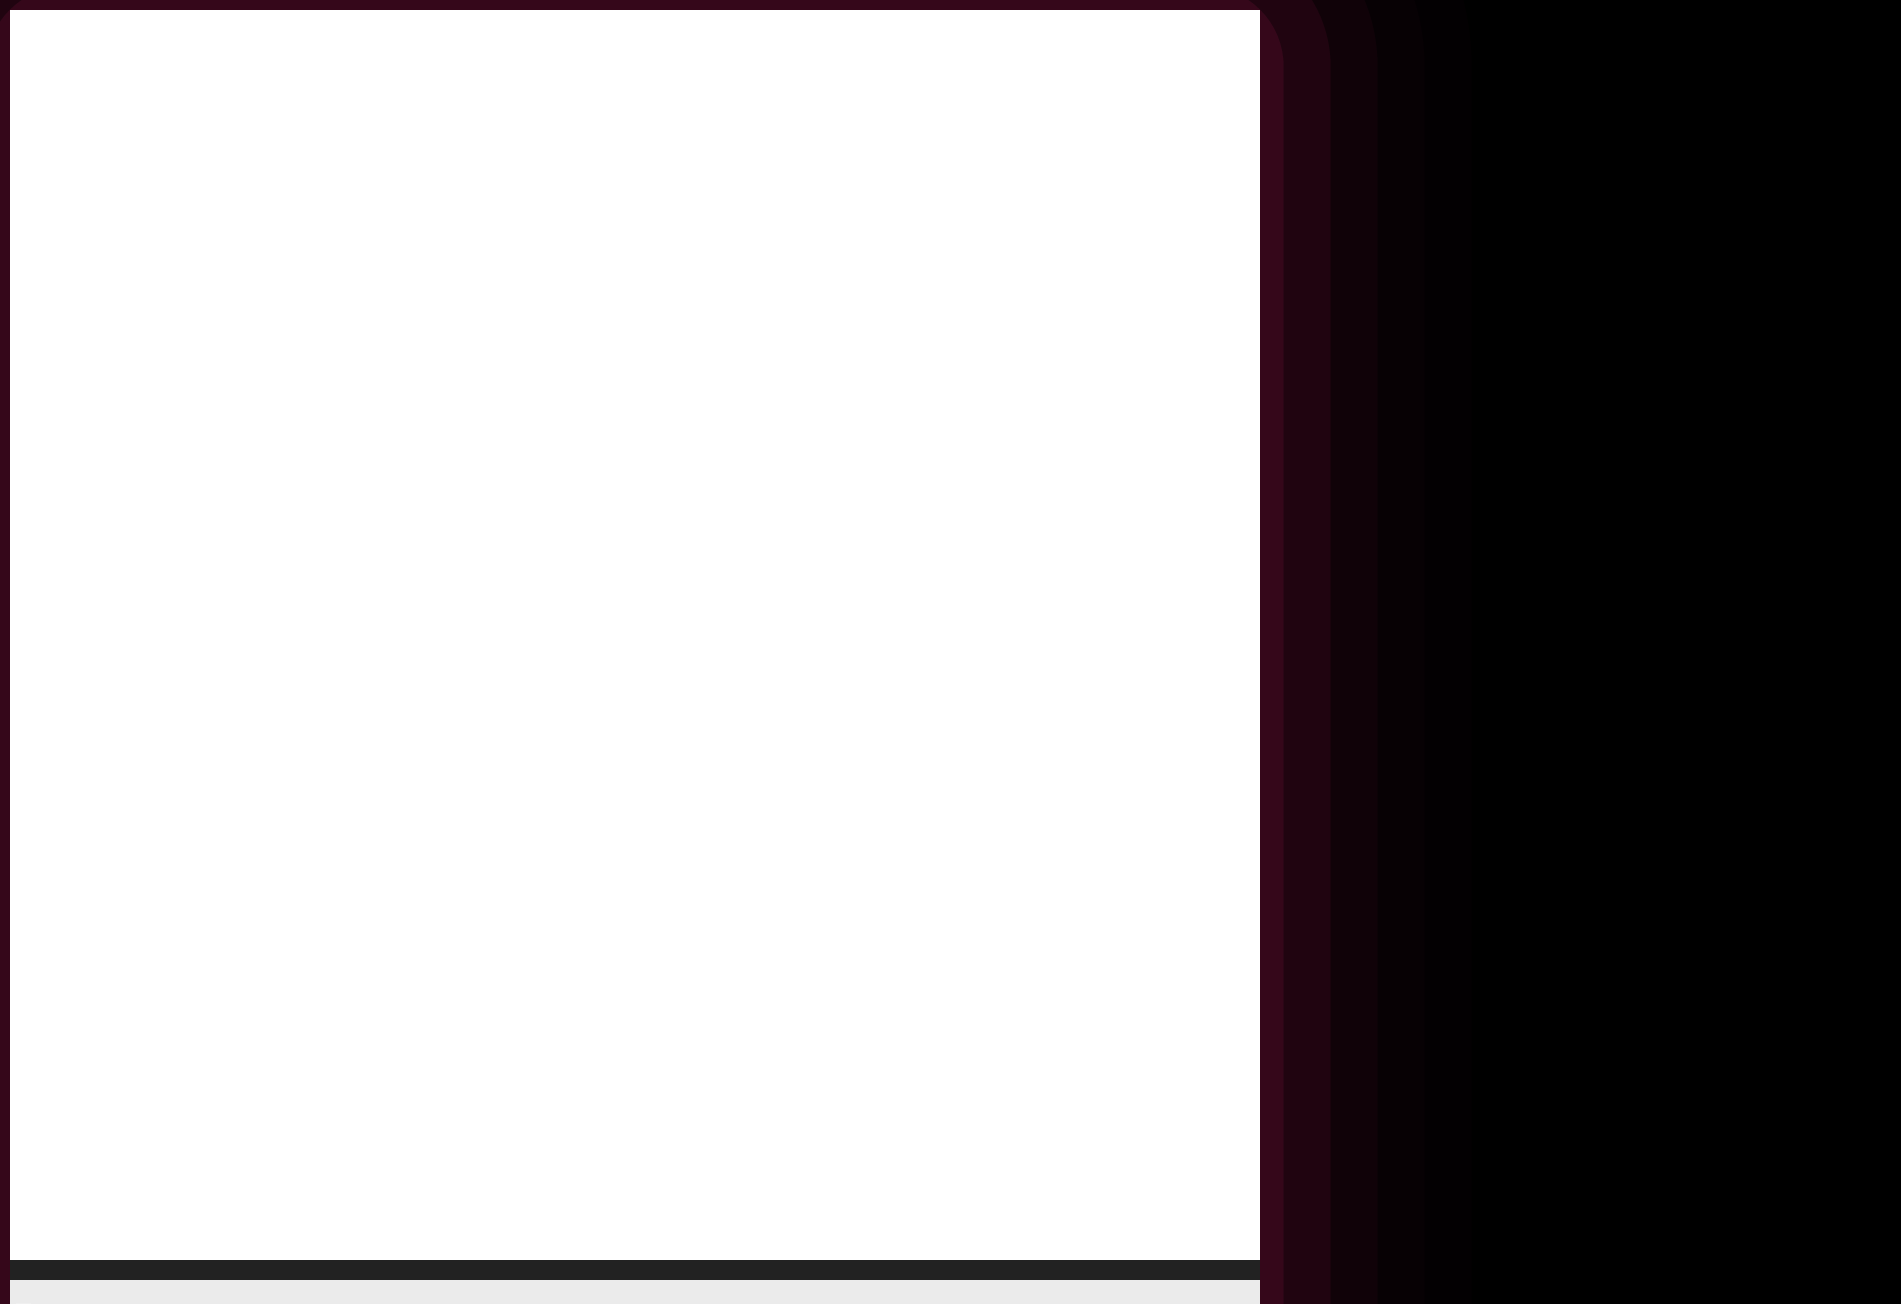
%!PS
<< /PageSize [1901 1304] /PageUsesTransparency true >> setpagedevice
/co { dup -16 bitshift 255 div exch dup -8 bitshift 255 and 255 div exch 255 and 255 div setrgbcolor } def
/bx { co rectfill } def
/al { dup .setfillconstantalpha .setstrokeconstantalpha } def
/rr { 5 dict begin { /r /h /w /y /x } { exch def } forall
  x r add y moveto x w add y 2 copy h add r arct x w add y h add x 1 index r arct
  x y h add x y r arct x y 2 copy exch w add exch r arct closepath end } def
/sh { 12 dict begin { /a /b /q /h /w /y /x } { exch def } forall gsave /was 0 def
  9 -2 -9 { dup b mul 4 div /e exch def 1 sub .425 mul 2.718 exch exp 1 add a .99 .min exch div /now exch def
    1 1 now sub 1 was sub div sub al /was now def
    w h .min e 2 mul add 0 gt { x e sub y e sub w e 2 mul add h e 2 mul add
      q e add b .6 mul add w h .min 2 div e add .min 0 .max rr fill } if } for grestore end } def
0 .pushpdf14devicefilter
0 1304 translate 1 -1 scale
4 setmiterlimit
0 0 1901 1304 16#000000 bx
16#D61F68 co
10 10 1250 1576 0 94 .5 sh
10 1260 1250 20 16#222222 bx
10 10 1250 1250 16#FFFFFF bx
10 1280 1250 24 16#EBEBEB bx
16 1303 15 1 16#EFEFEF bx
.poppdf14devicefilter showpage
